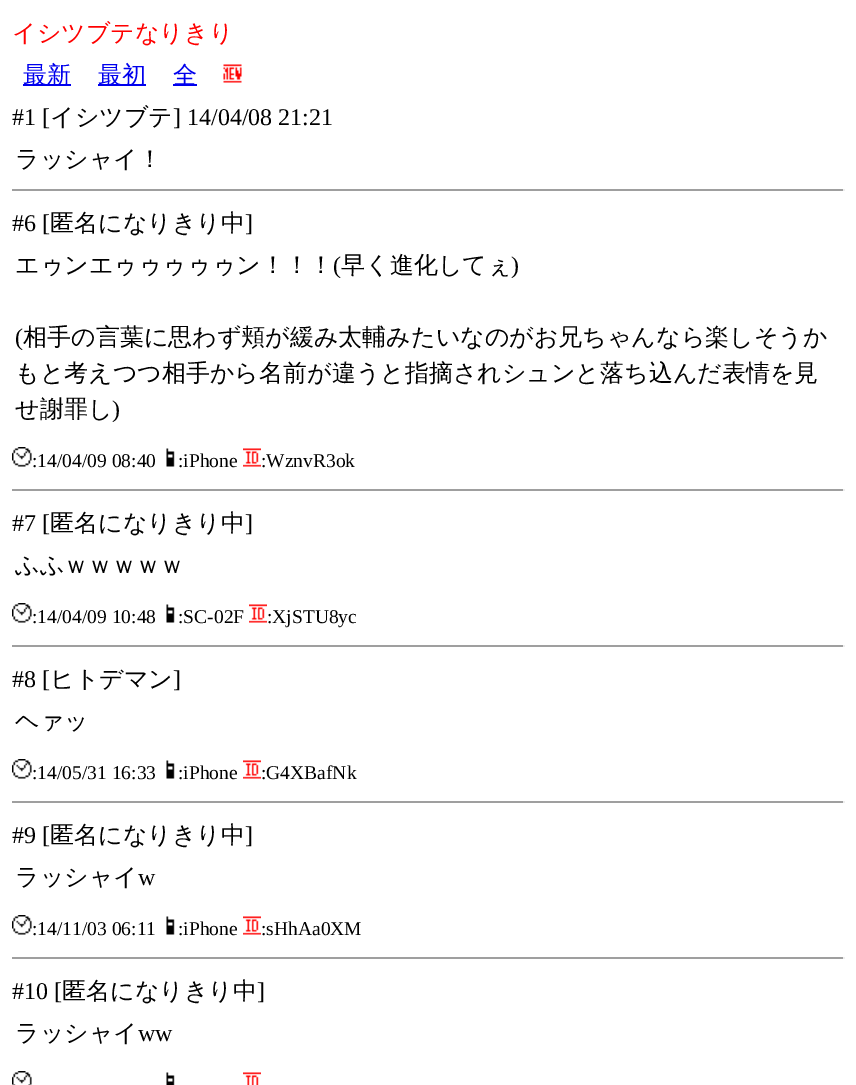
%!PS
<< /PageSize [856 1085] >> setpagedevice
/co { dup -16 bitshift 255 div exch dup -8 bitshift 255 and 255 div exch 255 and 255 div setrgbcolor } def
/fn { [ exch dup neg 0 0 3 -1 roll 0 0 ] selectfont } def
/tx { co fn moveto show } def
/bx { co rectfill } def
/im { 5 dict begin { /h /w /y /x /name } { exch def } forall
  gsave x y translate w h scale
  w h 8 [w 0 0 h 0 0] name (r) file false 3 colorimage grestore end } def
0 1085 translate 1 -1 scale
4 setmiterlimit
0 0 856 1085 16#FFFFFF bx
23 84 48 2 16#0000EE bx
98 84 48 2 16#0000EE bx
173 84 24 2 16#0000EE bx
(media/1.raw) 223 64 19 19 im
12 189 833 2 16#9F9F9F bx
843 189 2 2 16#EEEEEE bx
(media/2.raw) 12 447 20 20 im
(media/3.raw) 166 448 9 19 im
(media/4.raw) 243 448 18 19 im
12 489 833 2 16#9F9F9F bx
843 489 2 2 16#EEEEEE bx
(media/2.raw) 12 603 20 20 im
(media/3.raw) 166 604 9 19 im
(media/4.raw) 249 604 18 19 im
12 645 833 2 16#9F9F9F bx
843 645 2 2 16#EEEEEE bx
(media/2.raw) 12 759 20 20 im
(media/3.raw) 166 760 9 19 im
(media/4.raw) 243 760 18 19 im
12 801 833 2 16#9F9F9F bx
843 801 2 2 16#EEEEEE bx
(media/2.raw) 12 915 20 20 im
(media/3.raw) 166 916 9 19 im
(media/4.raw) 243 916 18 19 im
12 957 833 2 16#9F9F9F bx
843 957 2 2 16#EEEEEE bx
(media/5.raw) 12 1071 20 14 im
(media/6.raw) 166 1072 9 13 im
(media/7.raw) 243 1072 18 13 im
(イシツブテなりきり) 12 41 /WenQuanYiZenHei-Medium 24 16#FF0000 tx
(最新) 23 83 /WenQuanYiZenHei-Medium 24 16#0000EE tx
(最初) 98 83 /WenQuanYiZenHei-Medium 24 16#0000EE tx
(全) 173 83 /WenQuanYiZenHei-Medium 24 16#0000EE tx
(#1 [) 12 125 /LiberationSerif-Regular 24 16#000000 tx
(イシツブテ) 50 125 /WenQuanYiZenHei-Medium 24 16#000000 tx
(] 14/04/08 21:21) 173 125 /LiberationSerif-Regular 24 16#000000 tx
(ラッシャイ！) 15 167 /WenQuanYiZenHei-Medium 24 16#000000 tx
(#6 [) 12 231 /LiberationSerif-Regular 24 16#000000 tx
(匿名になりきり中) 50 231 /WenQuanYiZenHei-Medium 24 16#000000 tx
(]) 245 231 /LiberationSerif-Regular 24 16#000000 tx
(エゥンエゥゥゥゥゥン！！！) 15 273 /WenQuanYiZenHei-Medium 24 16#000000 tx
(\() 333 273 /LiberationSerif-Regular 24 16#000000 tx
(早く進化してぇ) 341 273 /WenQuanYiZenHei-Medium 24 16#000000 tx
(\)) 511 273 /LiberationSerif-Regular 24 16#000000 tx
(\() 15 345 /LiberationSerif-Regular 24 16#000000 tx
(相手の言葉に思わず頬が緩み太輔みたいなのがお兄ちゃんなら楽しそうか) 23 345 /WenQuanYiZenHei-Medium 24 16#000000 tx
(もと考えつつ相手から名前が違うと指摘されシュンと落ち込んだ表情を見) 15 381 /WenQuanYiZenHei-Medium 24 16#000000 tx
(せ謝罪し) 15 417 /WenQuanYiZenHei-Medium 24 16#000000 tx
(\)) 112 417 /LiberationSerif-Regular 24 16#000000 tx
(:14/04/09 08:40) 32 467 /LiberationSerif-Regular 19.5 16#000000 tx
(:iPhone) 178 467 /LiberationSerif-Regular 19.5 16#000000 tx
(:WznvR3ok) 261 467 /LiberationSerif-Regular 19.5 16#000000 tx
(#7 [) 12 531 /LiberationSerif-Regular 24 16#000000 tx
(匿名になりきり中) 50 531 /WenQuanYiZenHei-Medium 24 16#000000 tx
(]) 245 531 /LiberationSerif-Regular 24 16#000000 tx
(ふふｗｗｗｗｗ) 15 573 /WenQuanYiZenHei-Medium 24 16#000000 tx
(:14/04/09 10:48) 32 623 /LiberationSerif-Regular 19.5 16#000000 tx
(:SC-02F) 178 623 /LiberationSerif-Regular 19.5 16#000000 tx
(:XjSTU8yc) 267 623 /LiberationSerif-Regular 19.5 16#000000 tx
(#8 [) 12 687 /LiberationSerif-Regular 24 16#000000 tx
(ヒトデマン) 50 687 /WenQuanYiZenHei-Medium 24 16#000000 tx
(]) 173 687 /LiberationSerif-Regular 24 16#000000 tx
(ヘァッ) 15 729 /WenQuanYiZenHei-Medium 24 16#000000 tx
(:14/05/31 16:33) 32 779 /LiberationSerif-Regular 19.5 16#000000 tx
(:iPhone) 178 779 /LiberationSerif-Regular 19.5 16#000000 tx
(:G4XBafNk) 261 779 /LiberationSerif-Regular 19.5 16#000000 tx
(#9 [) 12 843 /LiberationSerif-Regular 24 16#000000 tx
(匿名になりきり中) 50 843 /WenQuanYiZenHei-Medium 24 16#000000 tx
(]) 245 843 /LiberationSerif-Regular 24 16#000000 tx
(ラッシャイ) 15 885 /WenQuanYiZenHei-Medium 24 16#000000 tx
(w) 138 885 /LiberationSerif-Regular 24 16#000000 tx
(:14/11/03 06:11) 32 935 /LiberationSerif-Regular 19.5 16#000000 tx
(:iPhone) 178 935 /LiberationSerif-Regular 19.5 16#000000 tx
(:sHhAa0XM) 261 935 /LiberationSerif-Regular 19.5 16#000000 tx
(#10 [) 12 999 /LiberationSerif-Regular 24 16#000000 tx
(匿名になりきり中) 62 999 /WenQuanYiZenHei-Medium 24 16#000000 tx
(]) 257 999 /LiberationSerif-Regular 24 16#000000 tx
(ラッシャイ) 15 1041 /WenQuanYiZenHei-Medium 24 16#000000 tx
(ww) 138 1041 /LiberationSerif-Regular 24 16#000000 tx
showpage
